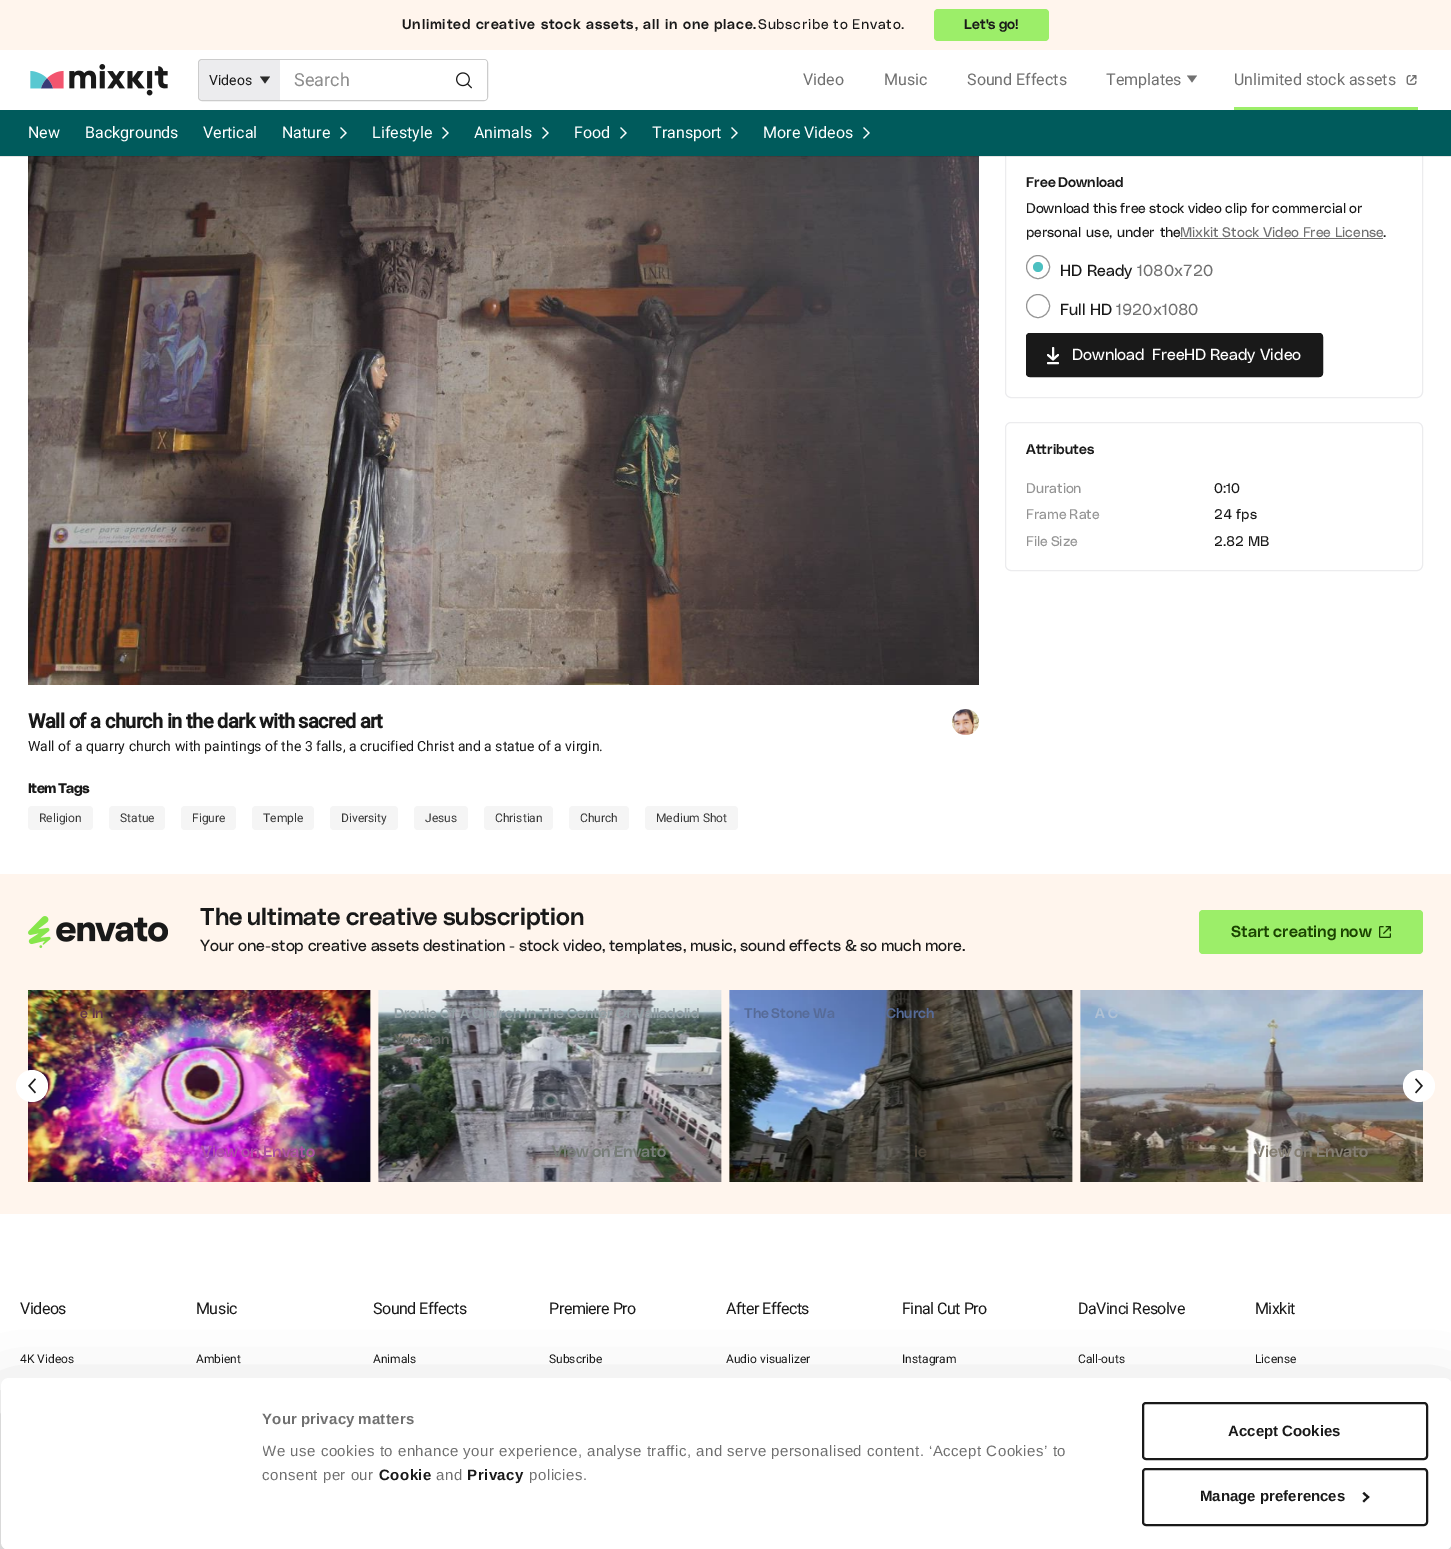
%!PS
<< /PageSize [1451 1549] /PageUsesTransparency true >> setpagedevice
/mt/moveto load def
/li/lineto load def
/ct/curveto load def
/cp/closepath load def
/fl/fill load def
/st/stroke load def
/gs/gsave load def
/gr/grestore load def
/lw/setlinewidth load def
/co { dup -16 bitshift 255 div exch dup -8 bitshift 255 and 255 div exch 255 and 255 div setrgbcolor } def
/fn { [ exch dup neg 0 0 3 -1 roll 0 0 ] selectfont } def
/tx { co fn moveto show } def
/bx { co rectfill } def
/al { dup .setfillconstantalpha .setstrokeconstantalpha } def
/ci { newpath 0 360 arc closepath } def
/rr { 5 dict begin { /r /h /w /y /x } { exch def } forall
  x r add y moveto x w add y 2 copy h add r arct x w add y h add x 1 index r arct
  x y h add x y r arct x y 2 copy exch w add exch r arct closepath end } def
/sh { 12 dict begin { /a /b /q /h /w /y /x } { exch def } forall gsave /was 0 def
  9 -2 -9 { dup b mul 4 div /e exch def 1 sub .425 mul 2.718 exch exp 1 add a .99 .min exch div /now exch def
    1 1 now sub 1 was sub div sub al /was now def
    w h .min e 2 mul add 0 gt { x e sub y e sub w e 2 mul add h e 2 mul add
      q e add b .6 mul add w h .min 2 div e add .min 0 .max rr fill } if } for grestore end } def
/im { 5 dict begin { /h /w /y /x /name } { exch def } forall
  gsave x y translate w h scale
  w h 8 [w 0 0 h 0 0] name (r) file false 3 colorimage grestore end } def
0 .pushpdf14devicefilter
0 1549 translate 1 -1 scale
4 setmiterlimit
0 0 1451 1549 16#FFFFFF bx
16#ECECEE co
1005.5 150.5 417 247 5.5 rr st
(media/5.raw) 28 156 951 529 im
0.1 al
0 156 1451 1 16#000000 bx
1 al
0 0 1451 50 16#FFF5ED bx
16#9CEE69 co
934 9 115 32 4 rr fl
(media/1.raw) 30 64 138 32 im
16#CCCCCC co
198.5 59.5 289 41 3.5 rr st
16#ECECEE co
203 60 mt 280 60 li 280 100 li 203 100 li 201 100 199 98 199 96 ct 199 64 li 199 62 201 60 203 60 ct cp fl
16#2A2A2A co
270 76.5 mt 260 76.5 li 265 83.5 li cp fl
16#FFFFFF co
280 60 mt 484 60 li 485.5 60 487 61.5 487 63 ct 487 97 li 487 98.5 485.5 100 484 100 ct 280 100 li cp fl
(media/2.raw) 456 72 16 17 im
16#717171 co
1197 75.5 mt 1187 75.5 li 1192 82.5 li cp fl
(media/3.raw) 1406 75 11 10 im
1234 107 184 3 16#9CEE69 bx
0 110 1451 46 16#005B5C bx
(media/4.raw) 340 127 7 12 im
(media/4.raw) 442 127 7 12 im
(media/4.raw) 542 127 7 12 im
(media/4.raw) 620 127 7 12 im
(media/4.raw) 731 127 7 12 im
(media/4.raw) 863 127 7 12 im
1180 238 203 1 16#707070 bx
16#949494 co
1038 267 11.5 ci st
16#4CC0C1 co
1038 267 5 ci fl
16#949494 co
1038 306 11.5 ci st
16#191919 co
1026 333 297 44 4 rr fl
16#FFFFFF co
2 lw
1 setlinecap
1 setlinejoin
1053 348 mt 1053 359.5 li 1053 359.5 mt 1058 355 li 1053 359.5 mt 1048 355 li 1048 363 mt 1058 363 li st
16#191919 co
1 lw
0 setlinecap
0 setlinejoin
1026.5 333.5 296 43 3.5 rr st
16#ECECEE co
1005.5 422.5 417 148 5.5 rr st
(media/6.raw) 952 709 27 26 im
16#F5F5F5 co
28 806 65 24 4 rr fl
109 806 56 24 4 rr fl
181 806 55 24 4 rr fl
252 806 62 24 4 rr fl
330 806 68 24 4 rr fl
414 806 54 24 4 rr fl
484 806 69 24 4 rr fl
569 806 60 24 4 rr fl
645 806 93 24 4 rr fl
0 874 1451 340 16#FFF5ED bx
(media/7.raw) 28 916 140 32 im
16#9CEE69 co
1199 910 224 44 4 rr fl
(media/8.raw) 1379 926 12 12 im
(media/10.raw) 28 990 343 192 im
16#FFFFFF co
32 1086 16 ci fl
(media/9.raw) 28 1078 8 16 im
(media/11.raw) 378 990 344 192 im
(media/12.raw) 729 990 344 192 im
(media/13.raw) 1080 990 343 192 im
1419 1086 16 ci fl
(media/14.raw) 1415 1078 8 16 im
16#000000 co
1 1408 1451 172 8 35 .3 sh
16#FFFFFF co
1 1378 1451 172 8 rr fl
16#191919 co
2 lw
1143 1403 284 56 3 rr st
1143 1469 284 56 3 rr st
1364 1492 mt 1369.5 1497 li 1368 1498.5 li 1362.5 1493.5 li cp fl
1368 1496 mt 1369.5 1497 li 1364 1502.5 li 1362.5 1501 li cp fl
/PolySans-SemiBold 14 fn
402 29 mt .8 0 (Unlimited creative stock assets, all in one place.) ashow
/PolySans-Regular 14 fn
758 29 mt -1 0 32 .8 0 (Subscribe to Envato.) awidthshow
/PolySans-SemiBold 14 fn
964 29 mt -1 0 32 (Let's go!) widthshow
(Videos) 209 85 /Roboto-Regular 14 16#191919 tx
(Search) 294 86 /Roboto-Regular 18 16#8C8C8C tx
(Video) 803 85 /Roboto-Regular 16 16#707070 tx
(Music) 884 85 /Roboto-Regular 16 16#707070 tx
(Sound Effects) 967 85 /Roboto-Regular 16 16#707070 tx
(Templates) 1106 85 /Roboto-Regular 16 16#707070 tx
(Unlimited stock assets) 1234 85 /Roboto-Regular 16 16#707070 tx
(New) 28 138 /Roboto-Regular 16 16#FFFFFF tx
(Backgrounds) 85 138 /Roboto-Regular 16 16#FFFFFF tx
(Vertical) 203 138 /Roboto-Regular 16 16#FFFFFF tx
(Nature) 282 138 /Roboto-Regular 16 16#FFFFFF tx
(Lifestyle) 372 138 /Roboto-Regular 16 16#FFFFFF tx
(Animals) 474 138 /Roboto-Regular 16 16#FFFFFF tx
(Food) 574 138 /Roboto-Regular 16 16#FFFFFF tx
(Transport) 652 138 /Roboto-Regular 16 16#FFFFFF tx
(More Videos) 763 138 /Roboto-Regular 16 16#FFFFFF tx
/PolySans-SemiBold 14 fn
16#191919 co
1026 187 mt -1 0 32 (Free Download) widthshow
/PolySans-Regular 14 fn
1026 213 mt -.75 0 32 (Download this free stock video clip for commercial or) widthshow
1026 237 mt 1 0 32 (personal use, under the) widthshow
16#707070 co
1180 237 mt -.5 0 32 (Mixkit Stock Video Free License) widthshow
(.) 1383 237 /PolySans-Regular 14 16#191919 tx
(HD Ready) 1060 276 /PolySans-Regular 16 16#191919 tx
(1080x720) 1137 276 /PolySans-Regular 16 16#707070 tx
(Full HD) 1060 315 /PolySans-Regular 16 16#191919 tx
(1920x1080) 1116 315 /PolySans-Regular 16 16#707070 tx
16#FFFFFF co
1072 360 mt 3 0 32 (Download Free) widthshow
1184 360 mt -1 0 32 (HD Ready) widthshow
(Video) 1260 360 /PolySans-Regular 16 16#FFFFFF tx
(Attributes) 1026 454 /PolySans-SemiBold 14 16#191919 tx
(Duration) 1026 493 /PolySans-Regular 14 16#949494 tx
(0:10) 1214 493 /PolySans-Regular 14 16#191919 tx
16#949494 co
1026 519 mt -1 0 32 (Frame Rate) widthshow
(24 fps) 1214 519 /PolySans-Regular 14 16#191919 tx
16#949494 co
1026 546 mt -1 0 32 (File Size) widthshow
(2.82 MB) 1214 546 /PolySans-Regular 14 16#191919 tx
/Roboto-Bold 20 fn
28 728 mt -.6 0 (Wall of a church in the dark with sacred art) ashow
(Wall of a quarry church with paintings of the 3 falls, a crucified Christ and a statue of a virgin.) 28 751 /Roboto-Regular 14 16#191919 tx
/PolySans-Bold 14 fn
28 793 mt -1 0 32 -.5 0 (Item Tags) awidthshow
(Religion) 39 822 /Roboto-Regular 12 16#383838 tx
(Statue) 120 822 /Roboto-Regular 12 16#383838 tx
(Figure) 192 822 /Roboto-Regular 12 16#383838 tx
(Temple) 263 822 /Roboto-Regular 12 16#383838 tx
(Diversity) 341 822 /Roboto-Regular 12 16#383838 tx
(Jesus) 425 822 /Roboto-Regular 12 16#383838 tx
(Christian) 495 822 /Roboto-Regular 12 16#383838 tx
(Church) 580 822 /Roboto-Regular 12 16#383838 tx
(Medium Shot) 656 822 /Roboto-Regular 12 16#383838 tx
/PolySans-SemiBold 24 fn
16#191919 co
200 925 mt -1.5 0 32 (The ultimate creative subscription) widthshow
/PolySans-Regular 16 fn
200 951 mt -1 0 32 (Your one-stop creative assets destination - stock video, templates, music, sound effects & so much more.) widthshow
/PolySans-SemiBold 16 fn
16#1A4200 co
1231 937 mt -1 0 32 (Start creating now) widthshow
(e In) 80 1018 /PolySans-SemiBold 14 16#63334A tx
/PolySans-SemiBold 16 fn
16#AE4FA4 co
201 1157 mt -1 0 32 (View on Envato) widthshow
/PolySans-SemiBold 14 fn
16#939FA4 co
394 1018 mt -.5 0 32 (Dronie Of A Church In The Center Of Valladolid) widthshow
(Yucatan) 394 1044 /PolySans-SemiBold 14 16#656865 tx
/PolySans-SemiBold 16 fn
16#787E79 co
552 1157 mt -1 0 32 (View on Envato) widthshow
/PolySans-SemiBold 14 fn
16#566B98 co
744 1018 mt -1 0 32 (The Stone Wa) widthshow
886 1018 mt -1 0 32 (Church) widthshow
/PolySans-SemiBold 16 fn
16#4D453A co
914 1157 mt -1 0 32 (ie) widthshow
(A C) 1095 1018 /PolySans-SemiBold 14 16#B1C2D5 tx
/PolySans-SemiBold 16 fn
16#847E72 co
1254 1157 mt -1 0 32 (View on Envato) widthshow
/Roboto-Regular 16 fn
16#191919 co
20 1314 mt -.5 0 (Videos) ashow
(4K Videos) 20 1363 /Roboto-Regular 12 16#191919 tx
/Roboto-Regular 16 fn
196 1314 mt -.5 0 (Music) ashow
(Ambient) 196 1363 /Roboto-Regular 12 16#191919 tx
/Roboto-Regular 16 fn
373 1314 mt -.5 0 (Sound Effects) ashow
(Animals) 373 1363 /Roboto-Regular 12 16#191919 tx
/Roboto-Regular 16 fn
549 1314 mt -.5 0 (Premiere Pro) ashow
(Subscribe) 549 1363 /Roboto-Regular 12 16#191919 tx
/Roboto-Regular 16 fn
726 1314 mt -.5 0 (After Effects) ashow
(Audio visualizer) 726 1363 /Roboto-Regular 12 16#191919 tx
/Roboto-Regular 16 fn
902 1314 mt -.5 0 (Final Cut Pro) ashow
(Instagram) 902 1363 /Roboto-Regular 12 16#191919 tx
/Roboto-Regular 16 fn
1078 1314 mt -.5 0 (DaVinci Resolve) ashow
(Call-outs) 1078 1363 /Roboto-Regular 12 16#191919 tx
/Roboto-Regular 16 fn
1255 1314 mt -.5 0 (Mixkit) ashow
(License) 1255 1363 /Roboto-Regular 12 16#191919 tx
/LiberationSans-Bold 15 fn
16#707070 co
262 1424 mt -1 0 32 .25 0 (Your privacy matters) awidthshow
gs
263 1408 873 79 rectclip
/LiberationSans-Regular 15 fn
262 1456 mt .5 0 (We use cookies to enhance your experience, analyse traffic, and serve personalised content. ‘Accept Cookies’ to) ashow
gr
/LiberationSans-Regular 15 fn
262 1480 mt .5 0 (consent per our) ashow
/LiberationSans-Bold 15 fn
16#191919 co
379 1480 mt .5 0 (Cookie) ashow
/LiberationSans-Regular 15 fn
16#707070 co
436 1480 mt .5 0 (and) ashow
/LiberationSans-Bold 15 fn
16#191919 co
467 1480 mt .5 0 (Privacy) ashow
/LiberationSans-Regular 15 fn
16#707070 co
529 1480 mt .5 0 (policies.) ashow
(Accept Cookies) 1228 1436 /LiberationSans-Bold 15 16#191919 tx
(Manage preferences) 1200 1501 /LiberationSans-Bold 15 16#191919 tx
.poppdf14devicefilter showpage
